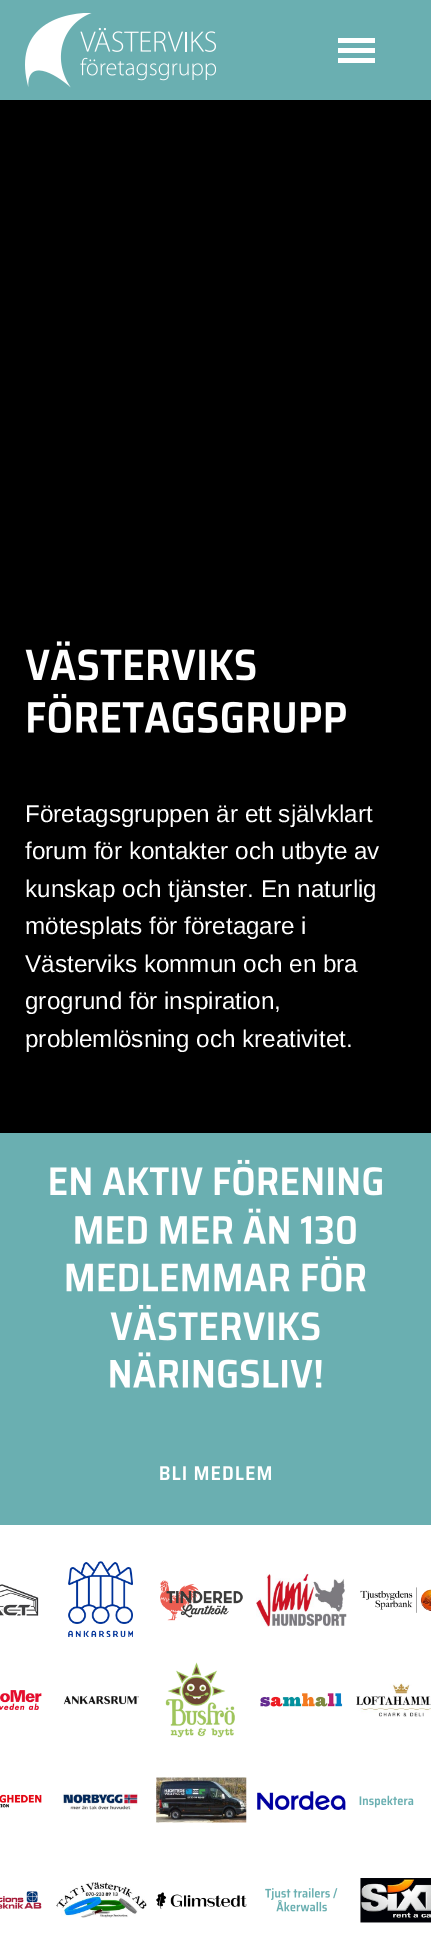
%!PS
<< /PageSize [431 1934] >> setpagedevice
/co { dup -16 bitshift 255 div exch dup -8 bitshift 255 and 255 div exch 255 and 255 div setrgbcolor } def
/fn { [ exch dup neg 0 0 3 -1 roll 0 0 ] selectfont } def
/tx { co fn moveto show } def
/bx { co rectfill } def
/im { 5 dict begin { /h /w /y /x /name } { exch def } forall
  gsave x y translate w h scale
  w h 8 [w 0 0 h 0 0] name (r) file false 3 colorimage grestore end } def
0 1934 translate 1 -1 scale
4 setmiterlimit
0 0 431 1934 16#FFFFFF bx
0 0 431 100 16#6AAFB1 bx
(media/1.raw) 25 13 191 75 im
338 38 37 5 16#FFFFFF bx
338 48 37 5 16#FFFFFF bx
338 58 37 5 16#FFFFFF bx
0 100 431 1033 16#000000 bx
(media/2.raw) 25 641 231 40 im
(media/3.raw) 28 693 318 40 im
0 1133 431 392 16#6AAFB1 bx
(media/4.raw) 50 1159 332 37 im
(media/5.raw) 75 1208 281 37 im
(media/6.raw) 66 1256 300 36 im
(media/7.raw) 110 1304 210 37 im
(media/8.raw) 110 1352 212 36 im
(media/9.raw) 160 1466 111 14 im
(media/10.raw) 0 1584 39 32 im
(media/11.raw) 68 1561 65 76 im
(media/12.raw) 160 1580 83 41 im
(media/13.raw) 256 1573 91 54 im
(media/14.raw) 360 1587 71 26 im
(media/15.raw) 0 1690 42 20 im
(media/16.raw) 63 1696 76 9 im
(media/17.raw) 165 1662 70 76 im
(media/18.raw) 260 1693 83 14 im
(media/19.raw) 356 1683 75 34 im
(media/20.raw) 0 1794 42 14 im
(media/21.raw) 62 1793 76 17 im
(media/22.raw) 156 1777 91 46 im
(media/23.raw) 257 1791 89 19 im
(media/24.raw) 359 1795 55 13 im
(media/25.raw) 0 1891 42 18 im
(media/26.raw) 56 1882 91 36 im
(media/27.raw) 156 1892 91 17 im
(media/28.raw) 265 1888 73 12 im
(media/29.raw) 276 1900 51 12 im
(media/30.raw) 360 1878 71 45 im
(Företagsgruppen är ett självklart) 25 822 /LiberationSans-Regular 24.25 16#FFFFFF tx
(forum för kontakter och utbyte av) 25 859 /LiberationSans-Regular 24.25 16#FFFFFF tx
(kunskap och tjänster. En naturlig) 25 897 /LiberationSans-Regular 24.25 16#FFFFFF tx
(mötesplats för företagare i) 25 934 /LiberationSans-Regular 24.25 16#FFFFFF tx
(Västerviks kommun och en bra) 25 972 /LiberationSans-Regular 24.25 16#FFFFFF tx
(grogrund för inspiration,) 25 1009 /LiberationSans-Regular 24.25 16#FFFFFF tx
(problemlösning och kreativitet.) 25 1047 /LiberationSans-Regular 24.25 16#FFFFFF tx
showpage
